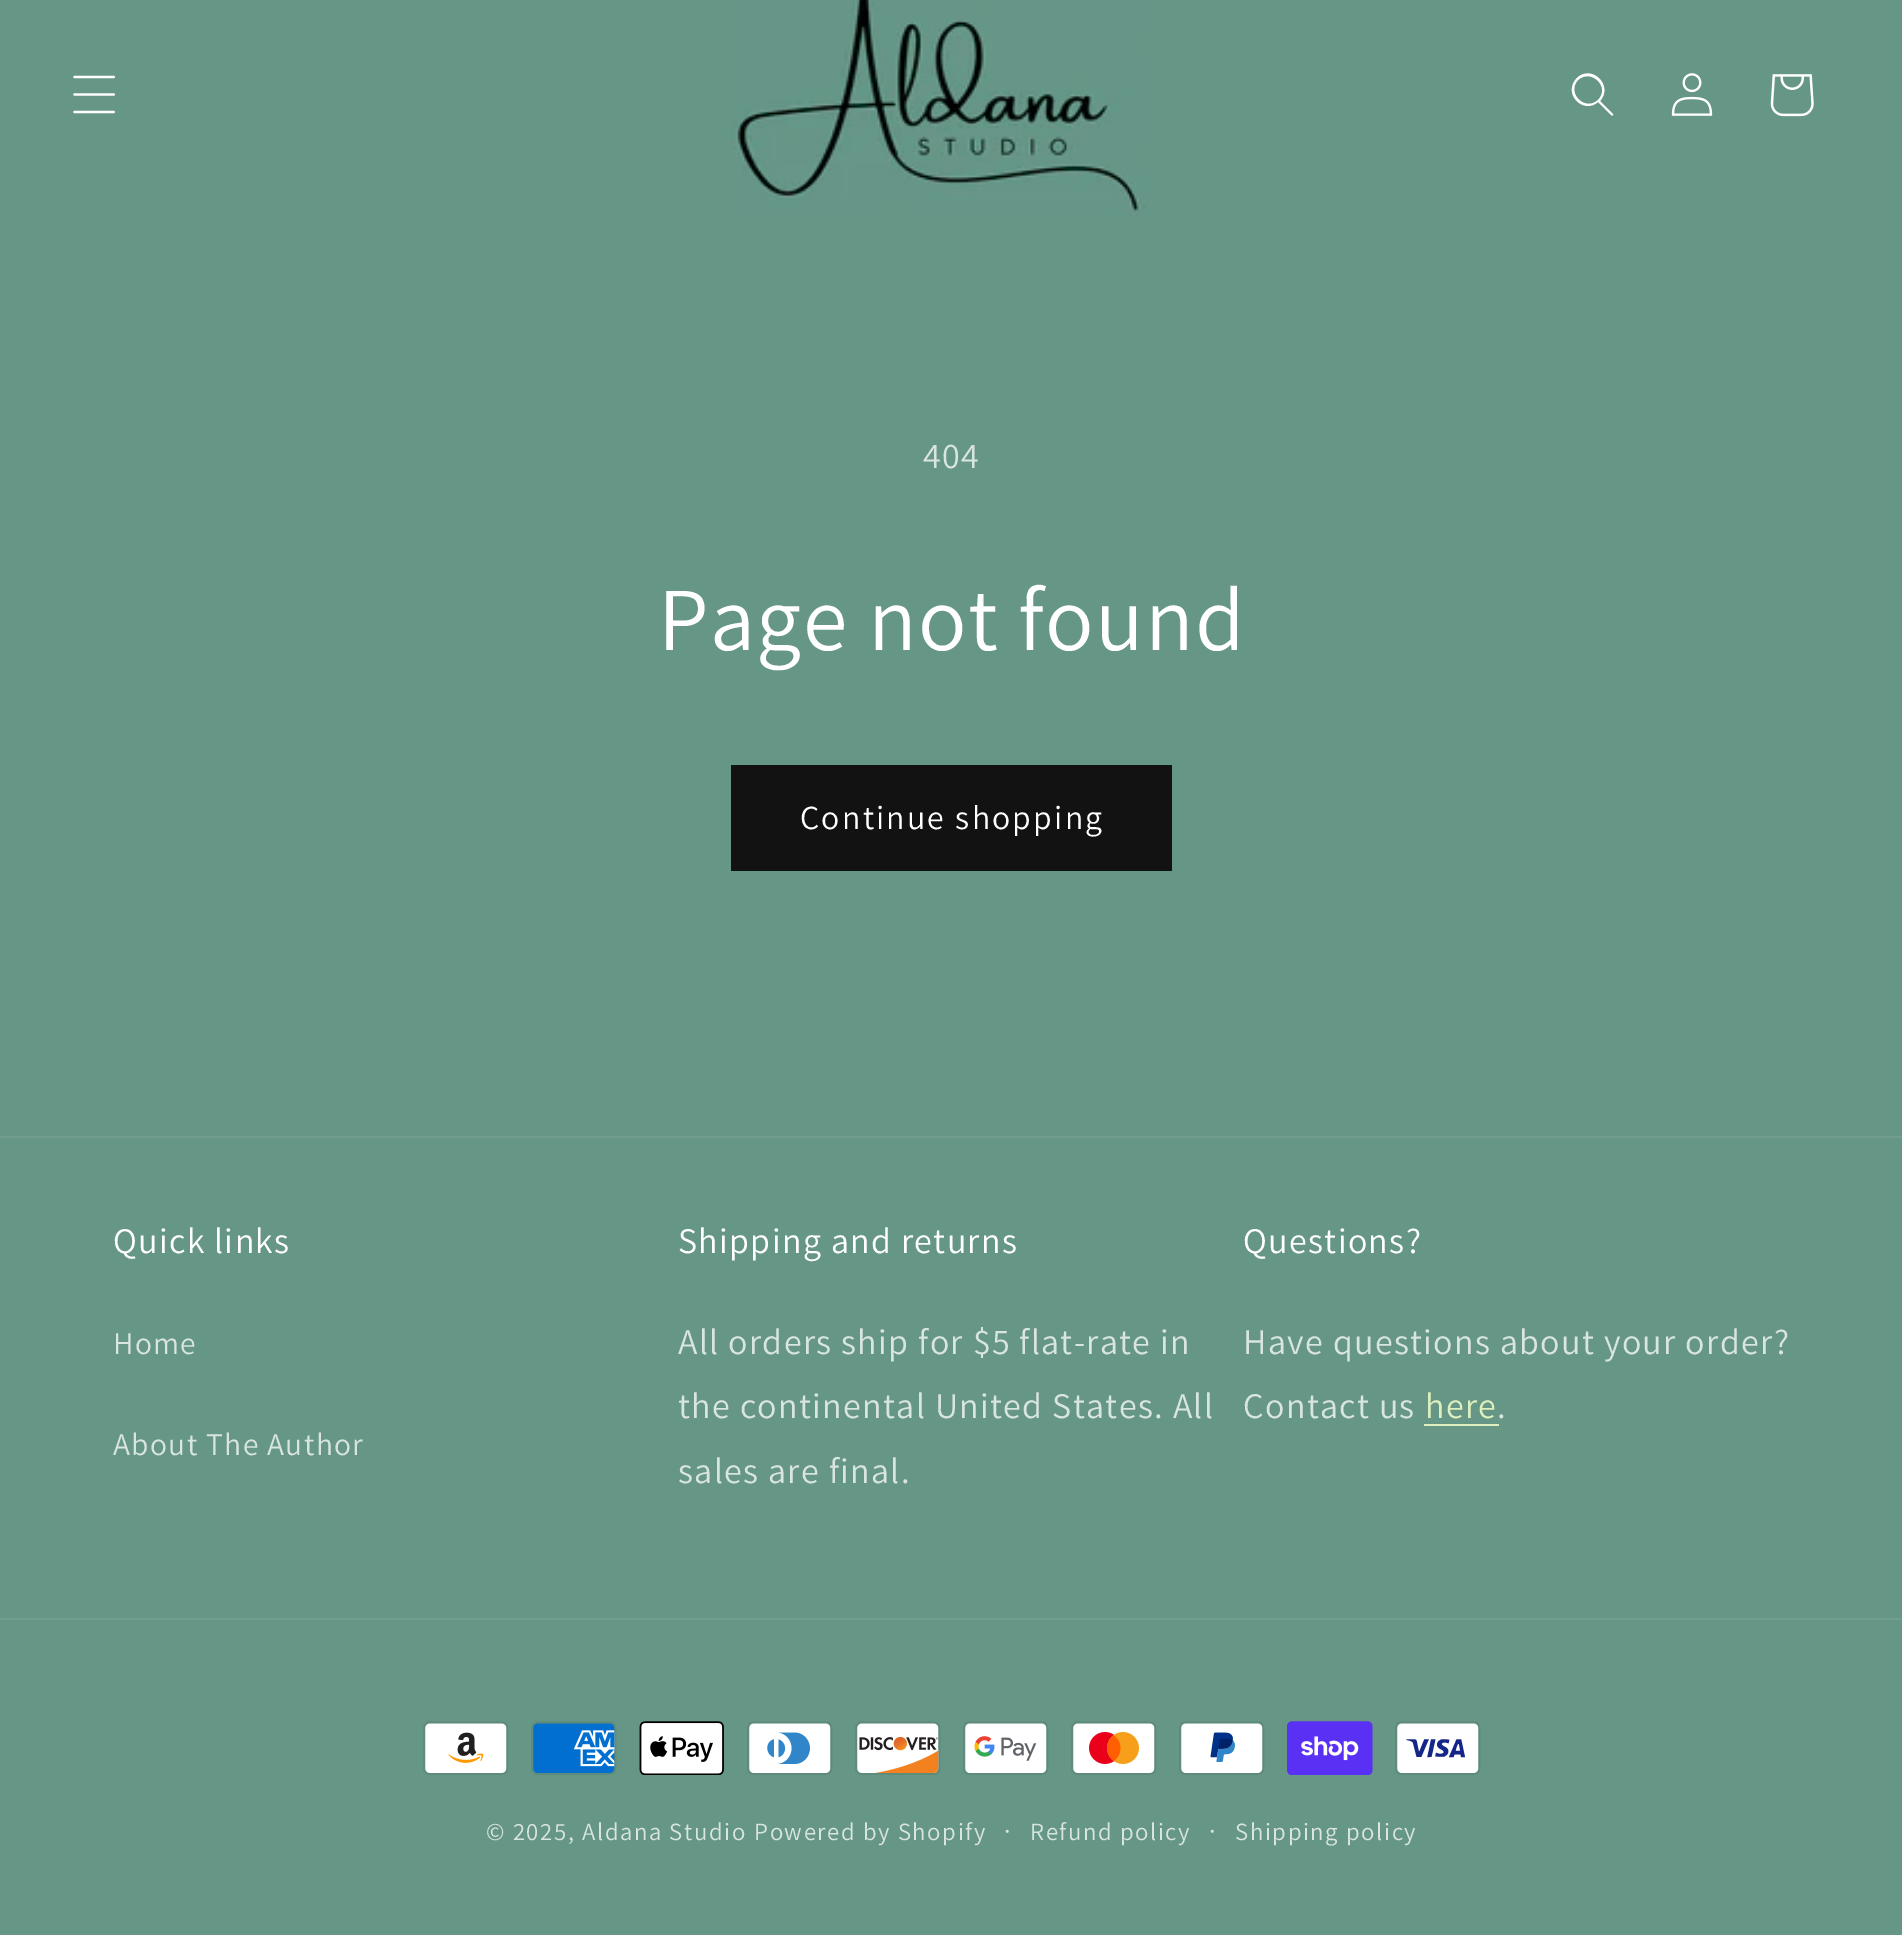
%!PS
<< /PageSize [1902 1935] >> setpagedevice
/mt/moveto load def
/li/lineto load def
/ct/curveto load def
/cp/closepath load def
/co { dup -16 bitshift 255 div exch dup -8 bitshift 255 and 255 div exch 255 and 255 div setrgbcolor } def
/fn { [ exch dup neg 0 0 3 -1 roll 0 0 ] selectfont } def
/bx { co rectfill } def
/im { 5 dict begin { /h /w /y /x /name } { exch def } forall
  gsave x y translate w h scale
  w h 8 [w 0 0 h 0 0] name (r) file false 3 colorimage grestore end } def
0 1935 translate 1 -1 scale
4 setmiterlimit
0 0 1902 1935 16#669686 bx
(media/1.raw) 73 75 42 39 im
(media/2.raw) 730 0 416 216 im
16#FFFFFF co
1598 100 mt 1585 112 1566 93 1578 80 ct 1591 68 1611 87 1598 100 ct 1598 102 mt 1583 115 1562 93 1577 78 ct 1591 64 1614 85 1600 101 ct 1613 114 li 1614 115 1612 116 1611 115 ct cp eofill
(media/3.raw) 1671 73 42 43 im
(media/4.raw) 1770 74 44 43 im
731 765 441 106 16#121212 bx
0 1136 1902 2 16#729E90 bx
1424 1424 75 2 16#DDEFBE bx
0 1618 1902 2 16#729E90 bx
(media/5.raw) 423 1721 86 54 im
(media/6.raw) 531 1721 86 54 im
(media/7.raw) 639 1721 85 54 im
(media/8.raw) 747 1721 86 54 im
(media/9.raw) 855 1721 86 54 im
(media/10.raw) 963 1721 86 54 im
(media/11.raw) 1071 1721 86 54 im
(media/12.raw) 1179 1721 86 54 im
(media/13.raw) 1287 1721 86 54 im
(media/14.raw) 1395 1721 86 54 im
/Assistant-Regular 36 fn
16#D9E5E1 co
923 468 mt 1.35 0 (404) ashow
/Assistant-Regular 90 fn
16#FFFFFF co
658 650 mt 1.35 0 (Page not found) ashow
/Assistant-Regular 33.75 fn
800 829 mt 2.25 0 (Continue shopping) ashow
/Assistant-Regular 36 fn
113 1253 mt 1.35 0 (Quick links) ashow
/Assistant-Regular 31.5 fn
16#D9E5E1 co
113 1354 mt 1.35 0 (Home) ashow
113 1455 mt 1.35 0 (About The Author) ashow
/Assistant-Regular 36 fn
16#FFFFFF co
678 1253 mt 1.35 0 (Shipping and returns) ashow
16#D9E5E1 co
678 1354 mt 1.35 0 (All orders ship for $5 flat-rate in) ashow
678 1418 mt 1.35 0 (the continental United States. All) ashow
678 1483 mt 1.35 0 (sales are final.) ashow
16#FFFFFF co
1243 1253 mt 1.35 0 (Questions?) ashow
16#D9E5E1 co
1243 1354 mt 1.35 0 (Have questions about your order?) ashow
1243 1418 mt 1.35 0 (Contact us) ashow
16#DDEFBE co
1425 1418 mt 1.35 0 (here) ashow
16#D9E5E1 co
1497 1418 mt 1.35 0 (.) ashow
/Assistant-Regular 24.75 fn
486 1840 mt 1.6 0 (© 2025, Aldana Studio) ashow
754 1840 mt 1.6 0 (Powered by Shopify) ashow
/Assistant-Regular 27 fn
1004 1840 mt 1.6 0 (·) ashow
/Assistant-Regular 24.75 fn
1030 1840 mt 1.6 0 (Refund policy) ashow
/Assistant-Regular 27 fn
1209 1840 mt 1.6 0 (·) ashow
/Assistant-Regular 24.75 fn
1235 1840 mt 1.6 0 (Shipping policy) ashow
showpage
